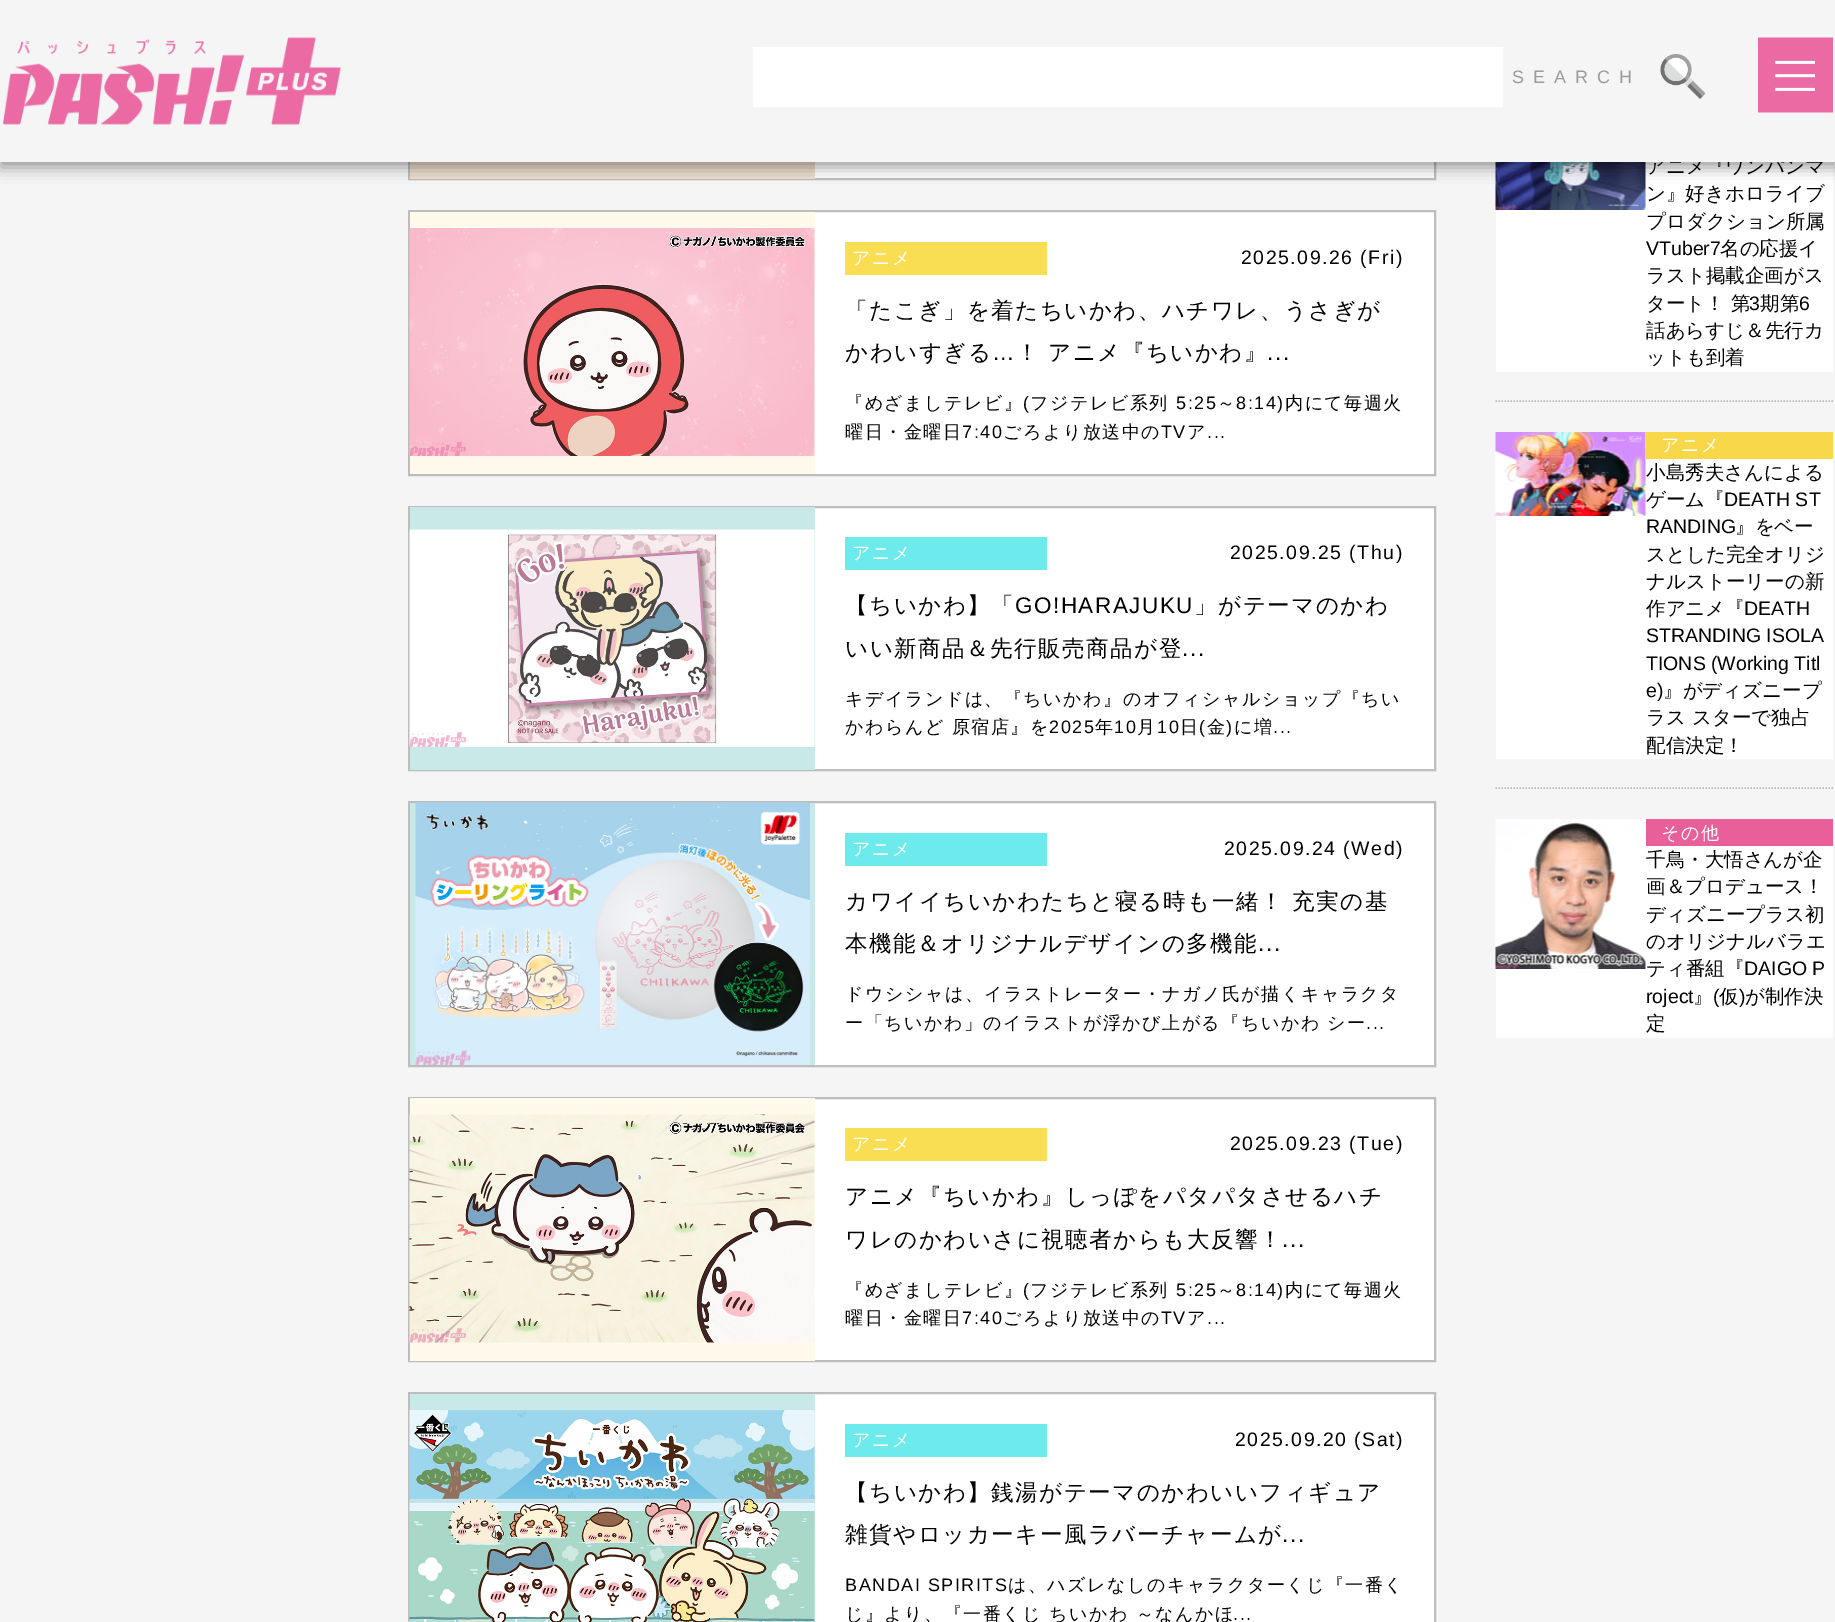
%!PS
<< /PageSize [1835 1622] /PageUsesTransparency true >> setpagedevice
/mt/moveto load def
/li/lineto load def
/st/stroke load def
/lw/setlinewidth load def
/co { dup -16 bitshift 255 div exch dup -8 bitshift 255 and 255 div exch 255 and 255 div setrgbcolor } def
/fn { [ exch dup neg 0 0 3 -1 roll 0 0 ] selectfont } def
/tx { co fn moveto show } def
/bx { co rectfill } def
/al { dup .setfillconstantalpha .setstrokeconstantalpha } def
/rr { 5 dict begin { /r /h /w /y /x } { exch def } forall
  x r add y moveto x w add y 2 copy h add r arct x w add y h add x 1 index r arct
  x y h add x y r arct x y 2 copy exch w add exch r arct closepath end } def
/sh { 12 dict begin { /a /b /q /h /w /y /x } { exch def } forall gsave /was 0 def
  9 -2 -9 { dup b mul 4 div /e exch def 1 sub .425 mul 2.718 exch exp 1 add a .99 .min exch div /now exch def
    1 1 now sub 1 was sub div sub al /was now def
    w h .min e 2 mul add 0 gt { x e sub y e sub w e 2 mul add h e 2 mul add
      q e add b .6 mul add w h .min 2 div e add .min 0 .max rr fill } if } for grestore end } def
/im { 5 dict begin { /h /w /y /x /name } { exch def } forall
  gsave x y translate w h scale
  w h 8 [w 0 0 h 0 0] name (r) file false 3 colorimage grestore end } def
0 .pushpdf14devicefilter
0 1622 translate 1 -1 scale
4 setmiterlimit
0 0 1835 1622 16#F5F5F5 bx
815 162 619 16 16#FFFFFF bx
16#BDBDBD co
2 lw
409 -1 1026 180 rectstroke
410 162 405 17 16#EDDDCF bx
1496 162 337 210 16#FFFFFF bx
(media/9.raw) 1495 162 151 48 im
16#000000 co
0 5 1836 162 0 7.5 .4 sh
815 212 619 262 16#FFFFFF bx
16#BDBDBD co
409 211 1026 264 rectstroke
410 212 405 262 16#FFFAEC bx
(media/4.raw) 409 228 406 228 im
845 242 202 33 16#F9DD53 bx
815 508 619 261 16#FFFFFF bx
16#BDBDBD co
409 507 1026 263 rectstroke
410 507 405 263 16#C9E9E9 bx
(media/5.raw) 409 529 406 218 im
845 537 202 33 16#6DEAEB bx
815 803 619 262 16#FFFFFF bx
16#BDBDBD co
409 802 1026 264 rectstroke
410 803 405 262 16#C9E9E9 bx
(media/6.raw) 415 802 395 263 im
845 833 202 33 16#6DEAEB bx
815 1099 619 261 16#FFFFFF bx
16#BDBDBD co
409 1098 1026 263 rectstroke
410 1098 405 263 16#FFFAEC bx
(media/7.raw) 409 1114 406 229 im
845 1128 202 33 16#F9DD53 bx
815 1394 619 228 16#FFFFFF bx
16#BDBDBD co
409 1393 1026 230 rectstroke
410 1394 405 228 16#C9E9E9 bx
(media/8.raw) 409 1410 406 212 im
845 1424 202 33 16#6DEAEB bx
16#BABABA co
1.5 lw
[1.5 1.5] 0 setdash
1495.5 401 mt 1833 401 li st
1496 432 337 327 16#FFFFFF bx
1646 432 187 27 16#F8D849 bx
16#BABABA co
1495.5 788 mt 1833 788 li st
1496 819 337 219 16#FFFFFF bx
1646 819 187 27 16#E85F9A bx
/WenQuanYiZenHei-Medium 18 fn
16#FFFFFF co
852 264 mt 1.5 0 (アニメ) ashow
/LiberationSans-Regular 19.5 fn
16#000000 co
1241 264 mt 1.5 0 (2025.09.26 \(Fri\)) ashow
/WenQuanYiZenHei-Medium 22.5 fn
845 318 mt 1.5 0 (「たこぎ」を着たちいかわ、ハチワレ、うさぎが) ashow
845 360 mt 1.5 0 (かわいすぎる) ashow
/LiberationSans-Regular 22.5 fn
992 360 mt 1.5 0 (…) ashow
/WenQuanYiZenHei-Medium 22.5 fn
1016 360 mt 1.5 0 (！ アニメ『ちいかわ』) ashow
/LiberationSans-Regular 22.5 fn
1267 360 mt 1.5 0 (...) ashow
/WenQuanYiZenHei-Medium 18 fn
845 409 mt 1.5 0 (『めざましテレビ』) ashow
/LiberationSans-Regular 18 fn
1023 409 mt 1.5 0 (\() ashow
/WenQuanYiZenHei-Medium 18 fn
1030 409 mt 1.5 0 (フジテレビ系列) ashow
/LiberationSans-Regular 18 fn
1176 409 mt 1.5 0 (5:25) ashow
/WenQuanYiZenHei-Medium 18 fn
1217 409 mt 1.5 0 (～) ashow
/LiberationSans-Regular 18 fn
1236 409 mt 1.5 0 (8:14\)) ashow
/WenQuanYiZenHei-Medium 18 fn
1285 409 mt 1.5 0 (内にて毎週火) ashow
845 438 mt 1.5 0 (曜日・金曜日) ashow
/LiberationSans-Regular 18 fn
962 438 mt 1.5 0 (7:40) ashow
/WenQuanYiZenHei-Medium 18 fn
1003 438 mt 1.5 0 (ごろより放送中の) ashow
/LiberationSans-Regular 18 fn
1161 438 mt 1.5 0 (TV) ashow
/WenQuanYiZenHei-Medium 18 fn
1187 438 mt 1.5 0 (ア) ashow
/LiberationSans-Regular 18 fn
1207 438 mt 1.5 0 (...) ashow
/WenQuanYiZenHei-Medium 18 fn
16#FFFFFF co
852 559 mt 1.5 0 (アニメ) ashow
/LiberationSans-Regular 19.5 fn
16#000000 co
1230 559 mt 1.5 0 (2025.09.25 \(Thu\)) ashow
/WenQuanYiZenHei-Medium 22.5 fn
845 613 mt 1.5 0 (【ちいかわ】「) ashow
/LiberationSans-Regular 22.5 fn
1015 613 mt 1.5 0 (GO!HARAJUKU) ashow
/WenQuanYiZenHei-Medium 22.5 fn
1194 613 mt 1.5 0 (」がテーマのかわ) ashow
845 656 mt 1.5 0 (いい新商品＆先行販売商品が登) ashow
/LiberationSans-Regular 22.5 fn
1182 656 mt 1.5 0 (...) ashow
/WenQuanYiZenHei-Medium 18 fn
845 705 mt 1.5 0 (キデイランドは、『ちいかわ』のオフィシャルショップ『ちい) ashow
845 733 mt 1.5 0 (かわらんど 原宿店』を) ashow
/LiberationSans-Regular 18 fn
1049 733 mt 1.5 0 (2025) ashow
/WenQuanYiZenHei-Medium 18 fn
1095 733 mt 1.5 0 (年) ashow
/LiberationSans-Regular 18 fn
1114 733 mt 1.5 0 (10) ashow
/WenQuanYiZenHei-Medium 18 fn
1137 733 mt 1.5 0 (月) ashow
/LiberationSans-Regular 18 fn
1157 733 mt 1.5 0 (10) ashow
/WenQuanYiZenHei-Medium 18 fn
1180 733 mt 1.5 0 (日) ashow
/LiberationSans-Regular 18 fn
1199 733 mt 1.5 0 (\() ashow
/WenQuanYiZenHei-Medium 18 fn
1207 733 mt 1.5 0 (金) ashow
/LiberationSans-Regular 18 fn
1226 733 mt 1.5 0 (\)) ashow
/WenQuanYiZenHei-Medium 18 fn
1234 733 mt 1.5 0 (に増) ashow
/LiberationSans-Regular 18 fn
1273 733 mt 1.5 0 (...) ashow
/WenQuanYiZenHei-Medium 18 fn
16#FFFFFF co
852 855 mt 1.5 0 (アニメ) ashow
/LiberationSans-Regular 19.5 fn
16#000000 co
1224 855 mt 1.5 0 (2025.09.24 \(Wed\)) ashow
/WenQuanYiZenHei-Medium 22.5 fn
845 909 mt 1.5 0 (カワイイちいかわたちと寝る時も一緒！ 充実の基) ashow
845 951 mt 1.5 0 (本機能＆オリジナルデザインの多機能) ashow
/LiberationSans-Regular 22.5 fn
1258 951 mt 1.5 0 (...) ashow
/WenQuanYiZenHei-Medium 18 fn
845 1000 mt 1.5 0 (ドウシシャは、イラストレーター・ナガノ氏が描くキャラクタ) ashow
845 1029 mt 1.5 0 (ー「ちいかわ」のイラストが浮かび上がる『ちいかわ シー) ashow
/LiberationSans-Regular 18 fn
1366 1029 mt 1.5 0 (...) ashow
/WenQuanYiZenHei-Medium 18 fn
16#FFFFFF co
852 1150 mt 1.5 0 (アニメ) ashow
/LiberationSans-Regular 19.5 fn
16#000000 co
1230 1150 mt 1.5 0 (2025.09.23 \(Tue\)) ashow
/WenQuanYiZenHei-Medium 22.5 fn
845 1204 mt 1.5 0 (アニメ『ちいかわ』しっぽをパタパタさせるハチ) ashow
845 1247 mt 1.5 0 (ワレのかわいさに視聴者からも大反響！) ashow
/LiberationSans-Regular 22.5 fn
1282 1247 mt 1.5 0 (...) ashow
/WenQuanYiZenHei-Medium 18 fn
845 1296 mt 1.5 0 (『めざましテレビ』) ashow
/LiberationSans-Regular 18 fn
1023 1296 mt 1.5 0 (\() ashow
/WenQuanYiZenHei-Medium 18 fn
1030 1296 mt 1.5 0 (フジテレビ系列) ashow
/LiberationSans-Regular 18 fn
1176 1296 mt 1.5 0 (5:25) ashow
/WenQuanYiZenHei-Medium 18 fn
1217 1296 mt 1.5 0 (～) ashow
/LiberationSans-Regular 18 fn
1236 1296 mt 1.5 0 (8:14\)) ashow
/WenQuanYiZenHei-Medium 18 fn
1285 1296 mt 1.5 0 (内にて毎週火) ashow
845 1324 mt 1.5 0 (曜日・金曜日) ashow
/LiberationSans-Regular 18 fn
962 1324 mt 1.5 0 (7:40) ashow
/WenQuanYiZenHei-Medium 18 fn
1003 1324 mt 1.5 0 (ごろより放送中の) ashow
/LiberationSans-Regular 18 fn
1161 1324 mt 1.5 0 (TV) ashow
/WenQuanYiZenHei-Medium 18 fn
1187 1324 mt 1.5 0 (ア) ashow
/LiberationSans-Regular 18 fn
1207 1324 mt 1.5 0 (...) ashow
/WenQuanYiZenHei-Medium 18 fn
16#FFFFFF co
852 1446 mt 1.5 0 (アニメ) ashow
/LiberationSans-Regular 19.5 fn
16#000000 co
1235 1446 mt 1.5 0 (2025.09.20 \(Sat\)) ashow
/WenQuanYiZenHei-Medium 22.5 fn
845 1500 mt 1.5 0 (【ちいかわ】銭湯がテーマのかわいいフィギュア) ashow
845 1542 mt 1.5 0 (雑貨やロッカーキー風ラバーチャームが) ashow
/LiberationSans-Regular 22.5 fn
1282 1542 mt 1.5 0 (...) ashow
/LiberationSans-Regular 18 fn
845 1591 mt 1.5 0 (BANDAI SPIRITS) ashow
/WenQuanYiZenHei-Medium 18 fn
1008 1591 mt 1.5 0 (は、ハズレなしのキャラクターくじ『一番く) ashow
845 1620 mt 1.5 0 (じ』より、『一番くじ ちいかわ ～なんかほ) ashow
/LiberationSans-Regular 18 fn
1233 1620 mt 1.5 0 (...) ashow
(アニメ『ワンパンマ) 1646 173 /WenQuanYiZenHei-Medium 19.5 16#000000 tx
0 0 1835 162 16#F5F5F5 bx
(media/1.raw) 3 37 338 88 im
/LiberationSans-Regular 18 fn
16#9B9B9B co
1512 83 mt 9 0 (SEARCH) ashow
(media/2.raw) 1660 54 46 45 im
753 47 750 60 16#FFFFFF bx
(media/3.raw) 1758 37 75 76 im
(ン』好きホロライブ) 1646 200 /WenQuanYiZenHei-Medium 19.5 16#000000 tx
(プロダクション所属) 1646 228 /WenQuanYiZenHei-Medium 19.5 16#000000 tx
(VTuber7) 1646 255 /LiberationSans-Regular 19.5 16#000000 tx
(名の応援イ) 1720 255 /WenQuanYiZenHei-Medium 19.5 16#000000 tx
(ラスト掲載企画がス) 1646 282 /WenQuanYiZenHei-Medium 19.5 16#000000 tx
(タート！ 第) 1646 310 /WenQuanYiZenHei-Medium 19.5 16#000000 tx
(3) 1749 310 /LiberationSans-Regular 19.5 16#000000 tx
(期第) 1760 310 /WenQuanYiZenHei-Medium 19.5 16#000000 tx
(6) 1799 310 /LiberationSans-Regular 19.5 16#000000 tx
(話あらすじ＆先行カ) 1646 337 /WenQuanYiZenHei-Medium 19.5 16#000000 tx
(ットも到着) 1646 364 /WenQuanYiZenHei-Medium 19.5 16#000000 tx
/WenQuanYiZenHei-Medium 18 fn
16#FFFFFF co
1661 451 mt 1.5 0 (アニメ) ashow
(小島秀夫さんによる) 1646 479 /WenQuanYiZenHei-Medium 19.5 16#000000 tx
(ゲーム『) 1646 506 /WenQuanYiZenHei-Medium 19.5 16#000000 tx
(media/10.raw) 1495 432 151 84 im
(DEATH ST) 1724 506 /LiberationSans-Regular 19.5 16#000000 tx
(RANDING) 1646 533 /LiberationSans-Regular 19.5 16#000000 tx
(』をベー) 1735 533 /WenQuanYiZenHei-Medium 19.5 16#000000 tx
(スとした完全オリジ) 1646 561 /WenQuanYiZenHei-Medium 19.5 16#000000 tx
(ナルストーリーの新) 1646 588 /WenQuanYiZenHei-Medium 19.5 16#000000 tx
(作アニメ『) 1646 615 /WenQuanYiZenHei-Medium 19.5 16#000000 tx
(DEATH) 1744 615 /LiberationSans-Regular 19.5 16#000000 tx
(STRANDING ISOLA) 1646 642 /LiberationSans-Regular 19.5 16#000000 tx
(TIONS \(Working Titl) 1646 670 /LiberationSans-Regular 19.5 16#000000 tx
(e\)) 1646 697 /LiberationSans-Regular 19.5 16#000000 tx
(』がディズニープ) 1663 697 /WenQuanYiZenHei-Medium 19.5 16#000000 tx
(ラス スターで独占) 1646 724 /WenQuanYiZenHei-Medium 19.5 16#000000 tx
(配信決定！) 1646 752 /WenQuanYiZenHei-Medium 19.5 16#000000 tx
/WenQuanYiZenHei-Medium 18 fn
16#FFFFFF co
1661 839 mt 1.5 0 (その他) ashow
(千鳥・大悟さんが企) 1646 866 /WenQuanYiZenHei-Medium 19.5 16#000000 tx
(media/11.raw) 1495 819 151 150 im
(画＆プロデュース！) 1646 893 /WenQuanYiZenHei-Medium 19.5 16#000000 tx
(ディズニープラス初) 1646 921 /WenQuanYiZenHei-Medium 19.5 16#000000 tx
(のオリジナルバラエ) 1646 948 /WenQuanYiZenHei-Medium 19.5 16#000000 tx
(ティ番組『) 1646 975 /WenQuanYiZenHei-Medium 19.5 16#000000 tx
(DAIGO P) 1744 975 /LiberationSans-Regular 19.5 16#000000 tx
(roject) 1646 1003 /LiberationSans-Regular 19.5 16#000000 tx
(』) 1693 1003 /WenQuanYiZenHei-Medium 19.5 16#000000 tx
(\() 1713 1003 /LiberationSans-Regular 19.5 16#000000 tx
(仮) 1719 1003 /WenQuanYiZenHei-Medium 19.5 16#000000 tx
(\)) 1739 1003 /LiberationSans-Regular 19.5 16#000000 tx
(が制作決) 1745 1003 /WenQuanYiZenHei-Medium 19.5 16#000000 tx
(定) 1646 1030 /WenQuanYiZenHei-Medium 19.5 16#000000 tx
.poppdf14devicefilter showpage
